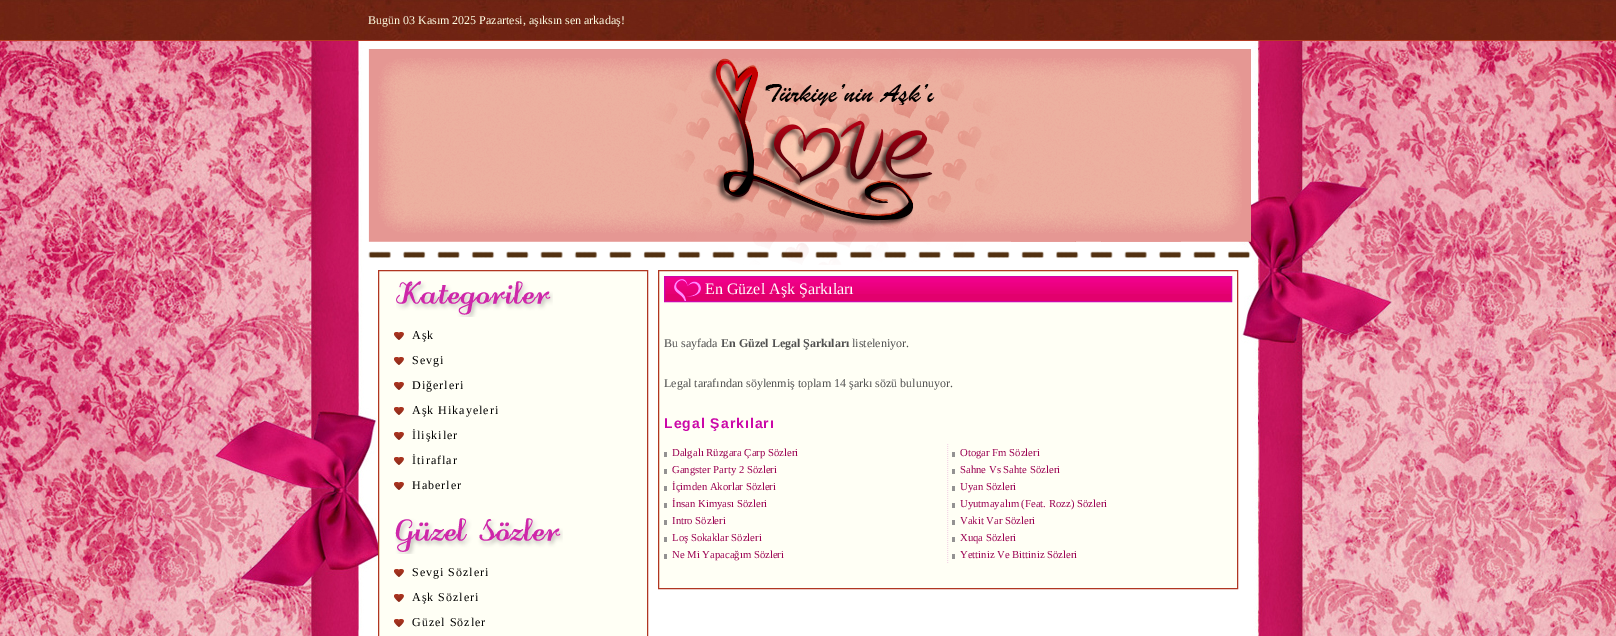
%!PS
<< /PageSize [1616 636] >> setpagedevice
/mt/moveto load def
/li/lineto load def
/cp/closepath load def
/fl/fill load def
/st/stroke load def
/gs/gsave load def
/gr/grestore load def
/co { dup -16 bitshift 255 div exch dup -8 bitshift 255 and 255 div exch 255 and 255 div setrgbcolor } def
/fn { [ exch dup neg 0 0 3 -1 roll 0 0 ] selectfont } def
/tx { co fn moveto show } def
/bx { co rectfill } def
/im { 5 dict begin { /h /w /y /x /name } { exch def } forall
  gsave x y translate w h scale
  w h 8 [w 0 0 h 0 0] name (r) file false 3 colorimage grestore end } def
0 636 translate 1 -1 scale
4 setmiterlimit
0 0 1616 636 16#FFFFFF bx
(media/1.raw) 0 41 1616 595 im
(media/2.raw) 0 0 1616 40 im
0 40 1616 1 16#B33A22 bx
(media/3.raw) 368 49 883 216 im
16#FFFFF5 co
378.5 270.5 mt 647.5 270.5 li 647.5 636.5 li 378.5 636.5 li cp gs fl gr
16#B03621 co
st
(media/4.raw) 396 281 157 36 im
(media/5.raw) 394 332 10 8 im
(media/5.raw) 394 357 10 8 im
(media/5.raw) 394 382 10 8 im
(media/5.raw) 394 407 10 8 im
(media/5.raw) 394 432 10 8 im
(media/5.raw) 394 457 10 8 im
(media/5.raw) 394 482 10 8 im
(media/6.raw) 395 518 168 36 im
(media/5.raw) 394 569 10 8 im
(media/5.raw) 394 594 10 8 im
(media/5.raw) 394 619 10 8 im
16#FFFFF5 co
658.5 270.5 mt 1237.5 270.5 li 1237.5 588.5 li 658.5 588.5 li cp gs fl gr
16#B03621 co
st
(media/7.raw) 665 277 566 24 im
16#CD07AA co
664.5 276.5 567 25 rectstroke
664 452 3 5 16#939292 bx
664 469 3 5 16#939292 bx
664 486 3 5 16#939292 bx
664 503 3 5 16#939292 bx
664 520 3 5 16#939292 bx
664 537 3 5 16#939292 bx
664 554 3 5 16#939292 bx
16#F5D7E7 co
[1 1] 0 setdash
947.5 444 mt 947.5 563 li st
952 452 3 5 16#939292 bx
952 469 3 5 16#939292 bx
952 486 3 5 16#939292 bx
952 503 3 5 16#939292 bx
952 520 3 5 16#939292 bx
952 537 3 5 16#939292 bx
952 554 3 5 16#939292 bx
(Bugün 03 Kasım 2025 Pazartesi, aşıksın sen arkadaş!) 368 24 /LiberationSerif-Regular 12 16#FFFEE4 tx
16#000000 co
412 339 mt 1 0 (Aşk) ashow
412 364 mt 1 0 (Sevgi) ashow
412 389 mt 1 0 (Diğerleri) ashow
412 414 mt 1 0 (Aşk Hikayeleri) ashow
412 439 mt 1 0 (İlişkiler) ashow
412 464 mt 1 0 (İtiraflar) ashow
412 489 mt 1 0 (Haberler) ashow
412 576 mt 1 0 (Sevgi Sözleri) ashow
412 601 mt 1 0 (Aşk Sözleri) ashow
412 626 mt 1 0 (Güzel Sözler) ashow
(En Güzel Aşk Şarkıları) 705 294 /LiberationSerif-Regular 16 16#FFFFFF tx
(Bu sayfada) 664 347 /LiberationSerif-Regular 12 16#505050 tx
(En Güzel Legal Şarkıları) 721 347 /LiberationSerif-Bold 12 16#505050 tx
(listeleniyor.) 852 347 /LiberationSerif-Regular 12 16#505050 tx
(Legal tarafından söylenmiş toplam 14 şarkı sözü bulunuyor.) 664 387 /LiberationSerif-Regular 12 16#505050 tx
/LiberationSans-Bold 14 fn
16#CB07A8 co
664 428 mt 1 0 (Legal Şarkıları) ashow
(Dalgalı Rüzgara Çarp Sözleri) 672 456 /LiberationSerif-Regular 10.7 16#9B0152 tx
(Gangster Party 2 Sözleri) 672 473 /LiberationSerif-Regular 10.7 16#9B0152 tx
(İçimden Akorlar Sözleri) 672 490 /LiberationSerif-Regular 10.7 16#9B0152 tx
(İnsan Kimyası Sözleri) 672 507 /LiberationSerif-Regular 10.7 16#9B0152 tx
(Intro Sözleri) 672 524 /LiberationSerif-Regular 10.7 16#9B0152 tx
(Loş Sokaklar Sözleri) 672 541 /LiberationSerif-Regular 10.7 16#9B0152 tx
(Ne Mi Yapacağım Sözleri) 672 558 /LiberationSerif-Regular 10.7 16#9B0152 tx
(Otogar Fm Sözleri) 960 456 /LiberationSerif-Regular 10.7 16#9B0152 tx
(Sahne Vs Sahte Sözleri) 960 473 /LiberationSerif-Regular 10.7 16#9B0152 tx
(Uyan Sözleri) 960 490 /LiberationSerif-Regular 10.7 16#9B0152 tx
(Uyutmayalım \(Feat. Rozz\) Sözleri) 960 507 /LiberationSerif-Regular 10.7 16#9B0152 tx
(Vakit Var Sözleri) 960 524 /LiberationSerif-Regular 10.7 16#9B0152 tx
(Xuqa Sözleri) 960 541 /LiberationSerif-Regular 10.7 16#9B0152 tx
(Yettiniz Ve Bittiniz Sözleri) 960 558 /LiberationSerif-Regular 10.7 16#9B0152 tx
showpage
